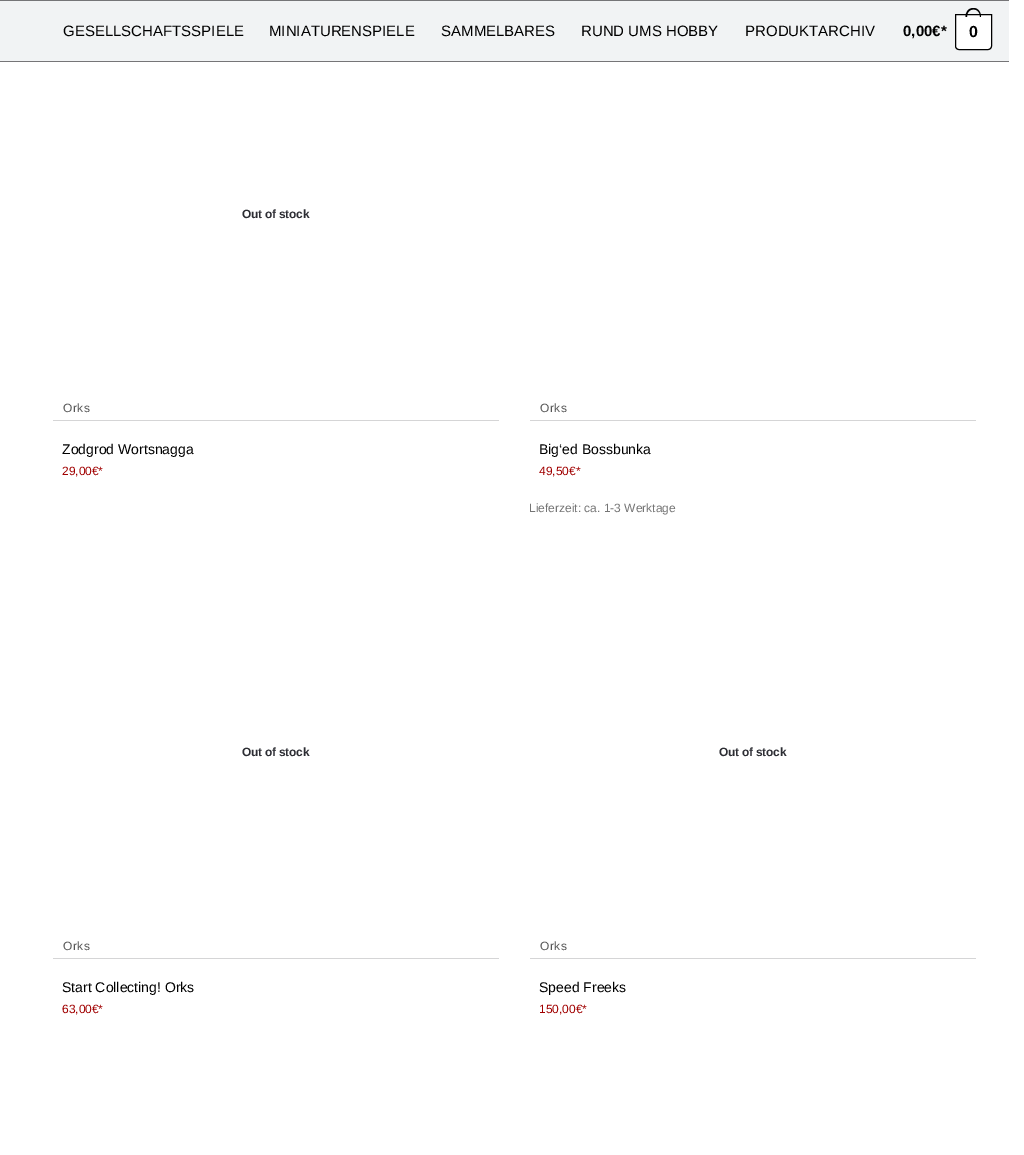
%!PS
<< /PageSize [1024 1155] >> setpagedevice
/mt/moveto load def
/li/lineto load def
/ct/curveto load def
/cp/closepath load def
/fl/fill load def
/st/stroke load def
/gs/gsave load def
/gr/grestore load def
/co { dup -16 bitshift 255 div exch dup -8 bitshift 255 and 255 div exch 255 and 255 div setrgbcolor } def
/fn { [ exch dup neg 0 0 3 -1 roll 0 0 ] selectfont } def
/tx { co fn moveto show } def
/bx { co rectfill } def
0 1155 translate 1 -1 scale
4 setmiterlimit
0 0 1024 1155 16#FFFFFF bx
0 1 1009 60 16#F1F3F4 bx
0 0 1009 1 16#757577 bx
0 61 1009 1 16#757577 bx
16#FFFFFF co
955.5 14.5 mt 991.5 14.5 li 991.5 46 li 991.5 48 990 49.5 988 49.5 ct 959 49.5 li 957 49.5 955.5 48 955.5 46 ct cp gs fl gr
16#000000 co
st
973.5 8 mt 978.5 8 981 12.5 981 17 ct 965.5 17 li 965.5 12.5 968 8 973.5 8 ct cp 973.5 9.5 mt 978 9.5 980 13 980 17 ct 967 17 li 967 13 969 9.5 973.5 9.5 ct cp eofill
52 420 447 1 16#D5D5D6 bx
52 420 1 1 16#FFFFFF bx
529 420 447 1 16#D5D5D6 bx
529 420 1 1 16#FFFFFF bx
52 958 447 1 16#D5D5D6 bx
52 958 1 1 16#FFFFFF bx
529 958 447 1 16#D5D5D6 bx
529 958 1 1 16#FFFFFF bx
(GESELLSCHAFTSSPIELE) 63 36 /LiberationSans-Regular 15 16#000000 tx
(MINIATURENSPIELE) 269 36 /LiberationSans-Regular 15 16#000000 tx
(SAMMELBARES) 441 36 /LiberationSans-Regular 15 16#000000 tx
(RUND UMS HOBBY) 581 36 /LiberationSans-Regular 15 16#000000 tx
(PRODUKTARCHIV) 745 36 /LiberationSans-Regular 15 16#000000 tx
(0,00€*) 903 36 /LiberationSans-Bold 15 16#000000 tx
/LiberationSans-Bold 16 fn
969 37 mt -1 0 (0) ashow
/LiberationSans-Bold 12 fn
16#2C2D33 co
242 218 mt -.25 0 (Out of stock) ashow
/LiberationSans-Regular 12 fn
16#555555 co
63 412 mt .5 0 (Orks) ashow
(Zodgrod Wortsnagga) 62 454 /LiberationSans-Regular 14 16#000000 tx
(*) 98 475 /LiberationSans-Regular 12 16#A10000 tx
(29,00€) 62 475 /LiberationSans-Regular 12 16#A10000 tx
16#555555 co
540 412 mt .5 0 (Orks) ashow
(Big‘ed Bossbunka) 539 454 /LiberationSans-Regular 14 16#000000 tx
(*) 576 475 /LiberationSans-Regular 12 16#A10000 tx
(49,50€) 539 475 /LiberationSans-Regular 12 16#A10000 tx
(Lieferzeit: ca. 1-3 Werktage) 529 512 /LiberationSans-Regular 12 16#757575 tx
/LiberationSans-Bold 12 fn
16#2C2D33 co
242 756 mt -.25 0 (Out of stock) ashow
/LiberationSans-Regular 12 fn
16#555555 co
63 950 mt .5 0 (Orks) ashow
(Start Collecting! Orks) 62 992 /LiberationSans-Regular 14 16#000000 tx
(*) 98 1013 /LiberationSans-Regular 12 16#A10000 tx
(63,00€) 62 1013 /LiberationSans-Regular 12 16#A10000 tx
/LiberationSans-Bold 12 fn
16#2C2D33 co
719 756 mt -.25 0 (Out of stock) ashow
/LiberationSans-Regular 12 fn
16#555555 co
540 950 mt .5 0 (Orks) ashow
(Speed Freeks) 539 992 /LiberationSans-Regular 14 16#000000 tx
(*) 582 1013 /LiberationSans-Regular 12 16#A10000 tx
(150,00€) 539 1013 /LiberationSans-Regular 12 16#A10000 tx
showpage
